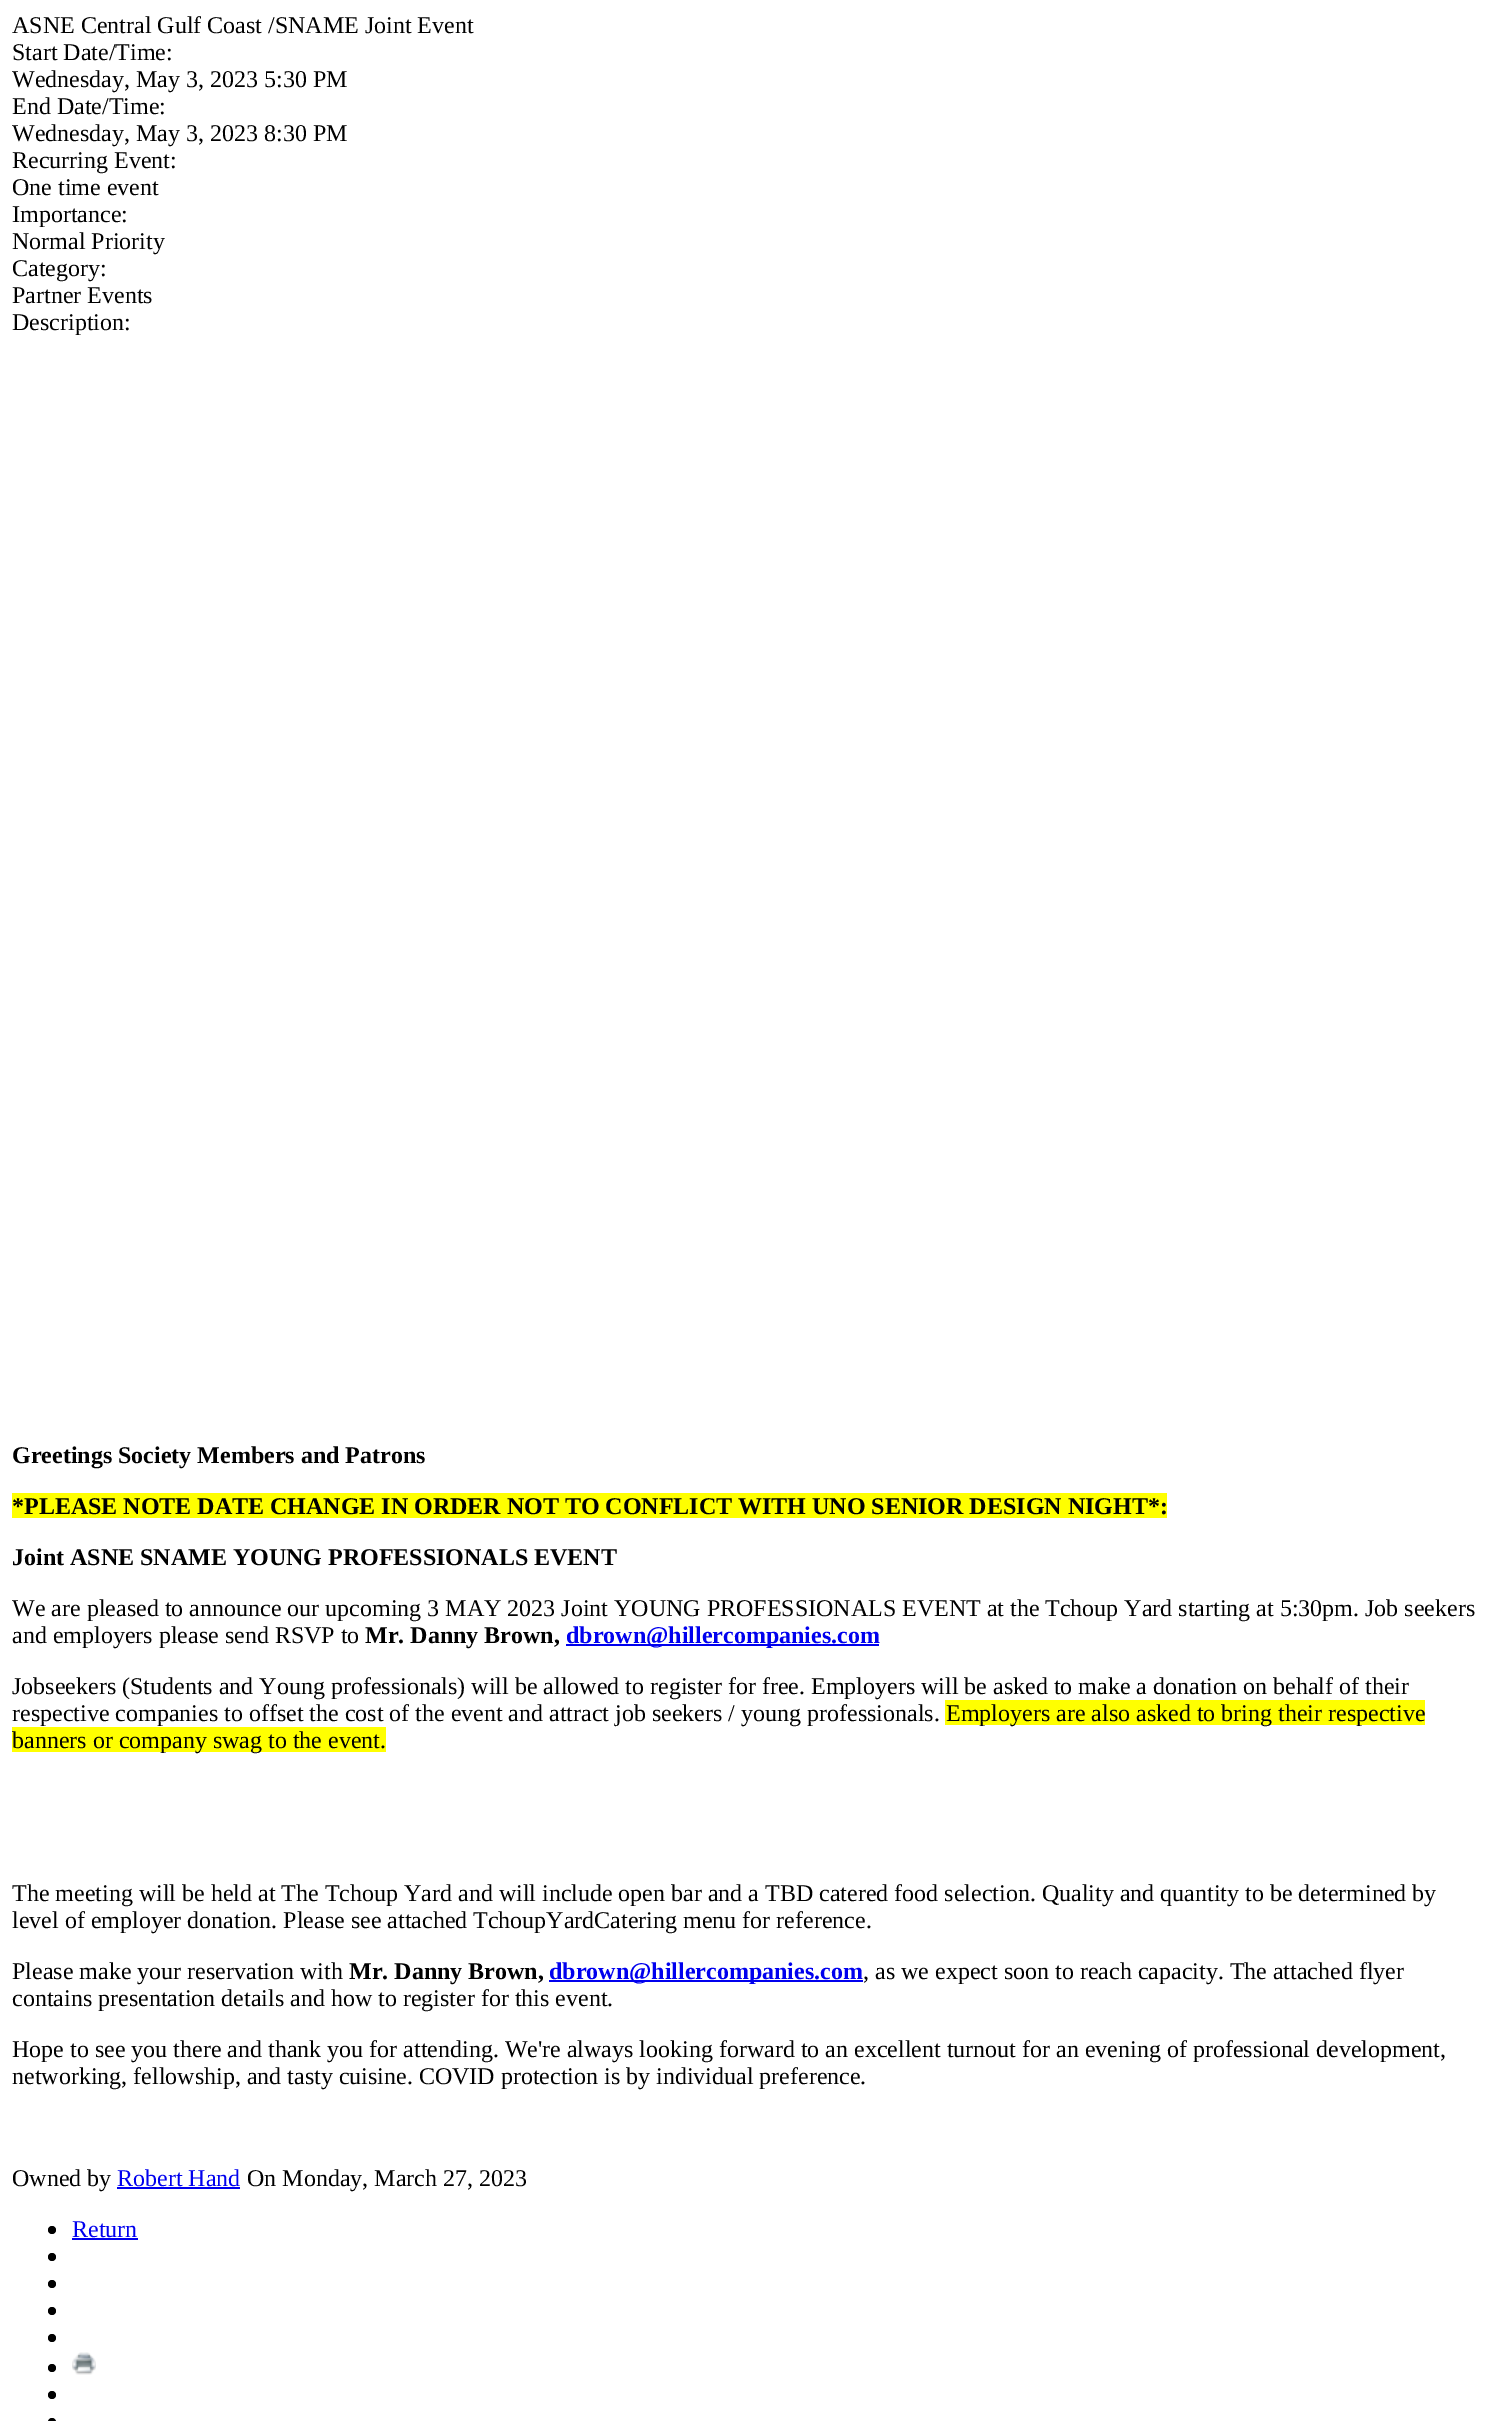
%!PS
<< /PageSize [1496 2421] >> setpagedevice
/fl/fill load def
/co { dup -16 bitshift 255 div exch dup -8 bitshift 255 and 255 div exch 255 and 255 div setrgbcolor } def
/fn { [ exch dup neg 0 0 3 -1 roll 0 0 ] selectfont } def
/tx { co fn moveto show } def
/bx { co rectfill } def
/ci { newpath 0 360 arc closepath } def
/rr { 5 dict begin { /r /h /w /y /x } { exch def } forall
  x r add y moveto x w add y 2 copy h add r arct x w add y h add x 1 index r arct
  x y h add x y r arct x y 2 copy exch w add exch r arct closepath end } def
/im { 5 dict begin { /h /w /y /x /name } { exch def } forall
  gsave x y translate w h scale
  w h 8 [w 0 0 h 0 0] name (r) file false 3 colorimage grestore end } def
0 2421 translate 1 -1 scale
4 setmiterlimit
0 0 1496 2421 16#FFFFFF bx
12 1493 1155 25 16#FFFF00 bx
566 1644 313 2 16#0000EE bx
945 1700 480 25 16#FFFF00 bx
12 1727 374 25 16#FFFF00 bx
549 1980 314 2 16#0000EE bx
117 2187 123 2 16#0000EE bx
16#000000 co
52 2230 4 ci fl
72 2238 66 2 16#0000EE bx
16#000000 co
52 2257 4 ci fl
52 2284 4 ci fl
52 2311 4 ci fl
52 2338 4 ci fl
52 2368 4 ci fl
(media/1.raw) 72 2352 24 23 im
52 2395 4 ci fl
48 2418 8 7 4 rr fl
(ASNE Central Gulf Coast /SNAME Joint Event) 12 33 /LiberationSerif-Regular 24 16#000000 tx
(Start Date/Time:) 12 60 /LiberationSerif-Regular 24 16#000000 tx
(Wednesday, May 3, 2023 5:30 PM) 12 87 /LiberationSerif-Regular 24 16#000000 tx
(End Date/Time:) 12 114 /LiberationSerif-Regular 24 16#000000 tx
(Wednesday, May 3, 2023 8:30 PM) 12 141 /LiberationSerif-Regular 24 16#000000 tx
(Recurring Event:) 12 168 /LiberationSerif-Regular 24 16#000000 tx
(One time event) 12 195 /LiberationSerif-Regular 24 16#000000 tx
(Importance:) 12 222 /LiberationSerif-Regular 24 16#000000 tx
(Normal Priority) 12 249 /LiberationSerif-Regular 24 16#000000 tx
(Category:) 12 276 /LiberationSerif-Regular 24 16#000000 tx
(Partner Events) 12 303 /LiberationSerif-Regular 24 16#000000 tx
(Description:) 12 330 /LiberationSerif-Regular 24 16#000000 tx
(Greetings Society Members and Patrons) 12 1463 /LiberationSerif-Bold 24 16#000000 tx
(*PLEASE NOTE DATE CHANGE IN ORDER NOT TO CONFLICT WITH UNO SENIOR DESIGN NIGHT*:) 12 1514 /LiberationSerif-Bold 24 16#000000 tx
(Joint ASNE SNAME YOUNG PROFESSIONALS EVENT) 12 1565 /LiberationSerif-Bold 24 16#000000 tx
(We are pleased to announce our upcoming 3 MAY 2023 Joint YOUNG PROFESSIONALS EVENT at the Tchoup Yard starting at 5:30pm. Job seekers) 12 1616 /LiberationSerif-Regular 24 16#000000 tx
(and employers please send RSVP to) 12 1643 /LiberationSerif-Regular 24 16#000000 tx
(Mr. Danny Brown,) 365 1643 /LiberationSerif-Bold 24 16#000000 tx
(dbrown@hillercompanies.com) 566 1643 /LiberationSerif-Bold 24 16#0000EE tx
(Jobseekers \(Students and Young professionals\) will be allowed to register for free. Employers will be asked to make a donation on behalf of their) 12 1694 /LiberationSerif-Regular 24 16#000000 tx
(respective companies to offset the cost of the event and attract job seekers / young professionals.) 12 1721 /LiberationSerif-Regular 24 16#000000 tx
(Employers are also asked to bring their respective) 946 1721 /LiberationSerif-Regular 24 16#000000 tx
(banners or company swag to the event.) 12 1748 /LiberationSerif-Regular 24 16#000000 tx
(The meeting will be held at The Tchoup Yard and will include open bar and a TBD catered food selection. Quality and quantity to be determined by) 12 1901 /LiberationSerif-Regular 24 16#000000 tx
(level of employer donation. Please see attached TchoupYardCatering menu for reference.) 12 1928 /LiberationSerif-Regular 24 16#000000 tx
(Please make your reservation with) 12 1979 /LiberationSerif-Regular 24 16#000000 tx
(Mr. Danny Brown,) 349 1979 /LiberationSerif-Bold 24 16#000000 tx
(dbrown@hillercompanies.com) 549 1979 /LiberationSerif-Bold 24 16#0000EE tx
(, as we expect soon to reach capacity. The attached flyer) 863 1979 /LiberationSerif-Regular 24 16#000000 tx
(contains presentation details and how to register for this event.) 12 2006 /LiberationSerif-Regular 24 16#000000 tx
(Hope to see you there and thank you for attending. We're always looking forward to an excellent turnout for an evening of professional development,) 12 2057 /LiberationSerif-Regular 24 16#000000 tx
(networking, fellowship, and tasty cuisine. COVID protection is by individual preference.) 12 2084 /LiberationSerif-Regular 24 16#000000 tx
(Owned by) 12 2186 /LiberationSerif-Regular 24 16#000000 tx
(Robert Hand) 117 2186 /LiberationSerif-Regular 24 16#0000EE tx
(On Monday, March 27, 2023) 247 2186 /LiberationSerif-Regular 24 16#000000 tx
(Return) 72 2237 /LiberationSerif-Regular 24 16#0000EE tx
showpage
